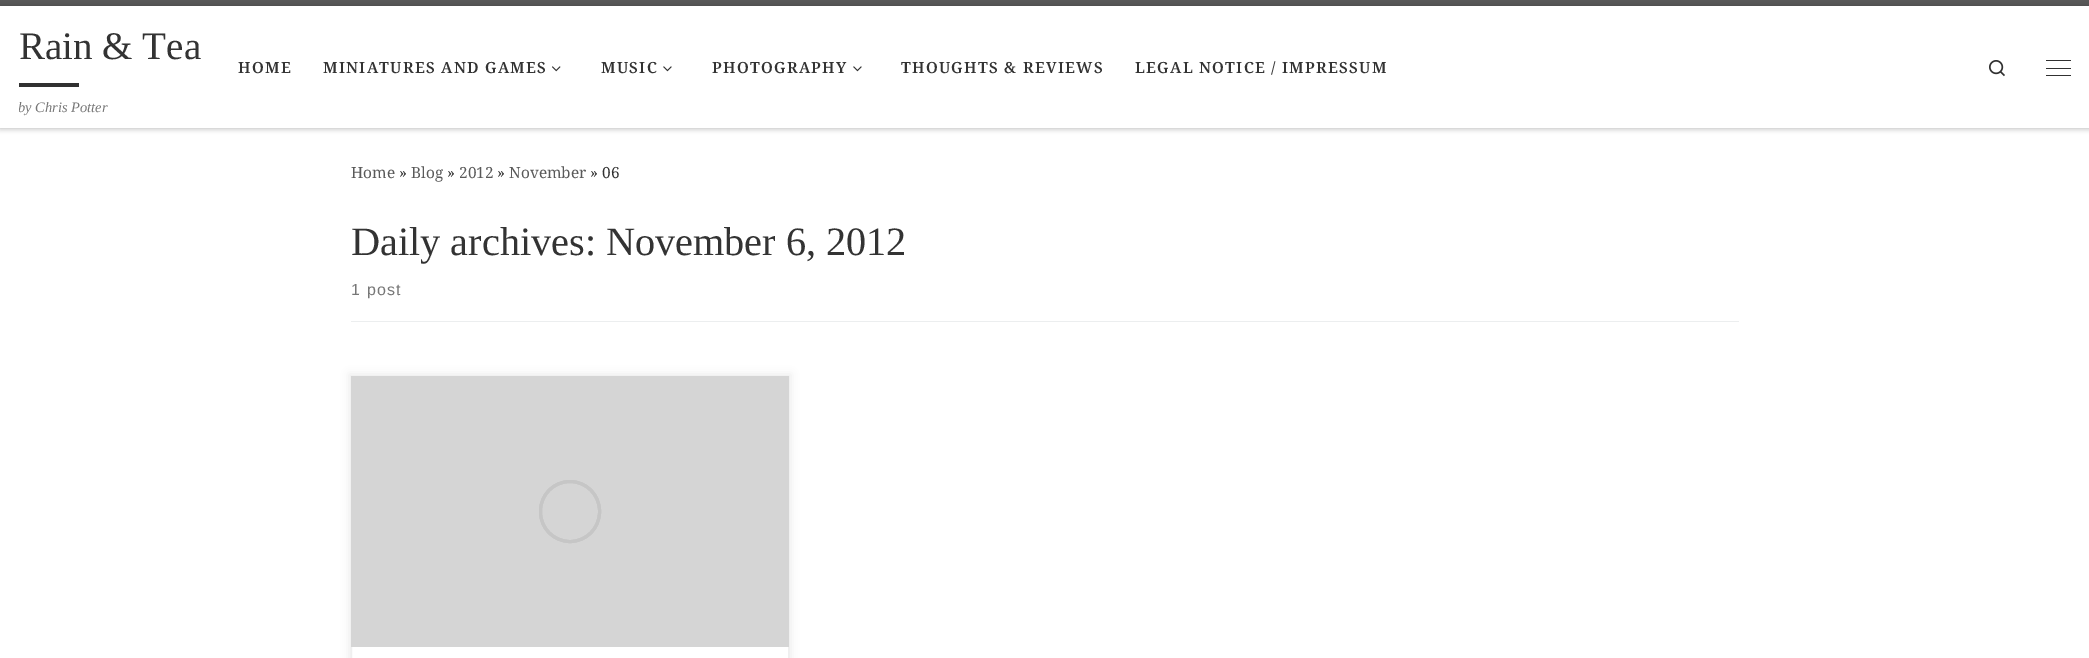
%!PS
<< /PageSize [2089 658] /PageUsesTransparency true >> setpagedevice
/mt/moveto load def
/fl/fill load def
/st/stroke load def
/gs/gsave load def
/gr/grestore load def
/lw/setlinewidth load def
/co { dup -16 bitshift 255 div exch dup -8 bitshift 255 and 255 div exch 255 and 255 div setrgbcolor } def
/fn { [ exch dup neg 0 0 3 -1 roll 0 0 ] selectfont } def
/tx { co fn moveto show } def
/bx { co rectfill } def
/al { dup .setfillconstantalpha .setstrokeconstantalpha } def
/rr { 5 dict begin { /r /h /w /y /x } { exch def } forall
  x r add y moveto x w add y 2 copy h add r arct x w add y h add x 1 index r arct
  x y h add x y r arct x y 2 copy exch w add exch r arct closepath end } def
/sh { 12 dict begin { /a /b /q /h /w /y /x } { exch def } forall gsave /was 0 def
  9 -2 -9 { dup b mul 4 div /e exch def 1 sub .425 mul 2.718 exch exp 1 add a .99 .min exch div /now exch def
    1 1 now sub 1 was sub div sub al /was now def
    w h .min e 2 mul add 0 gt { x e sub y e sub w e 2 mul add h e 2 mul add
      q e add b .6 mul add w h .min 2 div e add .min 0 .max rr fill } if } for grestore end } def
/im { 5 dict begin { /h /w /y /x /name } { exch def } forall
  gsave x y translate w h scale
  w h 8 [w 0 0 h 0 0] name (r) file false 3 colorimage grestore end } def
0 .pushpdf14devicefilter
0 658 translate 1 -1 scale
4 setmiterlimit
0 0 2089 658 16#FFFFFF bx
16#666666 co
0 3 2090 128 0 1 .08 sh
0 0 2089 6 16#5A5A5A bx
0 128 2089 1 16#EFEFEF bx
16#000000 co
0 6 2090 122 0 3 .2 sh
0 6 2089 122 16#FFFFFF bx
19 83 60 4 16#313131 bx
(media/1.raw) 552 66 9 6 im
(media/2.raw) 663 66 9 6 im
(media/2.raw) 853 66 9 6 im
(media/3.raw) 1989 60 16 17 im
2046 60 25 1 .5 rr fl
2046 68 25 1 .5 rr fl
2046 75 25 1 .5 rr fl
351 321 1388 1 16#ECEEEF bx
16#000000 co
349 374 442 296 0 4 .07 sh
352 647 436 11 16#FFFFFF bx
16#EFEFEF co
351.5 376.5 437 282 rectstroke
351 376 438 271 16#D5D5D5 bx
16#C6C6C6 co
3 lw
540.5 481.5 59 60 29.5 rr st
540.5 481.5 59 60 29.5 rr st
(Rain & Tea) 19 59 /LiberationSerif-Regular 39 16#333333 tx
gs
19 6 181 122 rectclip
(by Chris Potter) 18 112 /LiberationSerif-Italic 14.5 16#777777 tx
gr
/NotoSerif-SemiBold 15.4 fn
238 73 mt 1.25 0 (HOME) ashow
323 73 mt 1.25 0 (MINIATURES AND GAMES) ashow
601 73 mt 1.25 0 (MUSIC) ashow
712 73 mt 1.25 0 (PHOTOGRAPHY) ashow
901 73 mt 1.25 0 (THOUGHTS & REVIEWS) ashow
1135 73 mt 1.25 0 (LEGAL NOTICE / IMPRESSUM) ashow
(Home) 351 178 /NotoSerif-Regular 15.4 16#5A5A5A tx
(») 399 178 /NotoSerif-Regular 15.4 16#333333 tx
(Blog) 411 178 /NotoSerif-Regular 15.4 16#5A5A5A tx
(») 447 178 /NotoSerif-Regular 15.4 16#333333 tx
(2012) 459 178 /NotoSerif-Regular 15.4 16#5A5A5A tx
(») 497 178 /NotoSerif-Regular 15.4 16#333333 tx
(November) 509 178 /NotoSerif-Regular 15.4 16#5A5A5A tx
(» 06) 590 178 /NotoSerif-Regular 15.4 16#333333 tx
(Daily archives: November 6, 2012) 351 255 /LiberationSerif-Regular 40.25 16#333333 tx
/LiberationSans-Regular 16 fn
16#777777 co
351 295 mt 1.25 0 (1 post) ashow
.poppdf14devicefilter showpage
